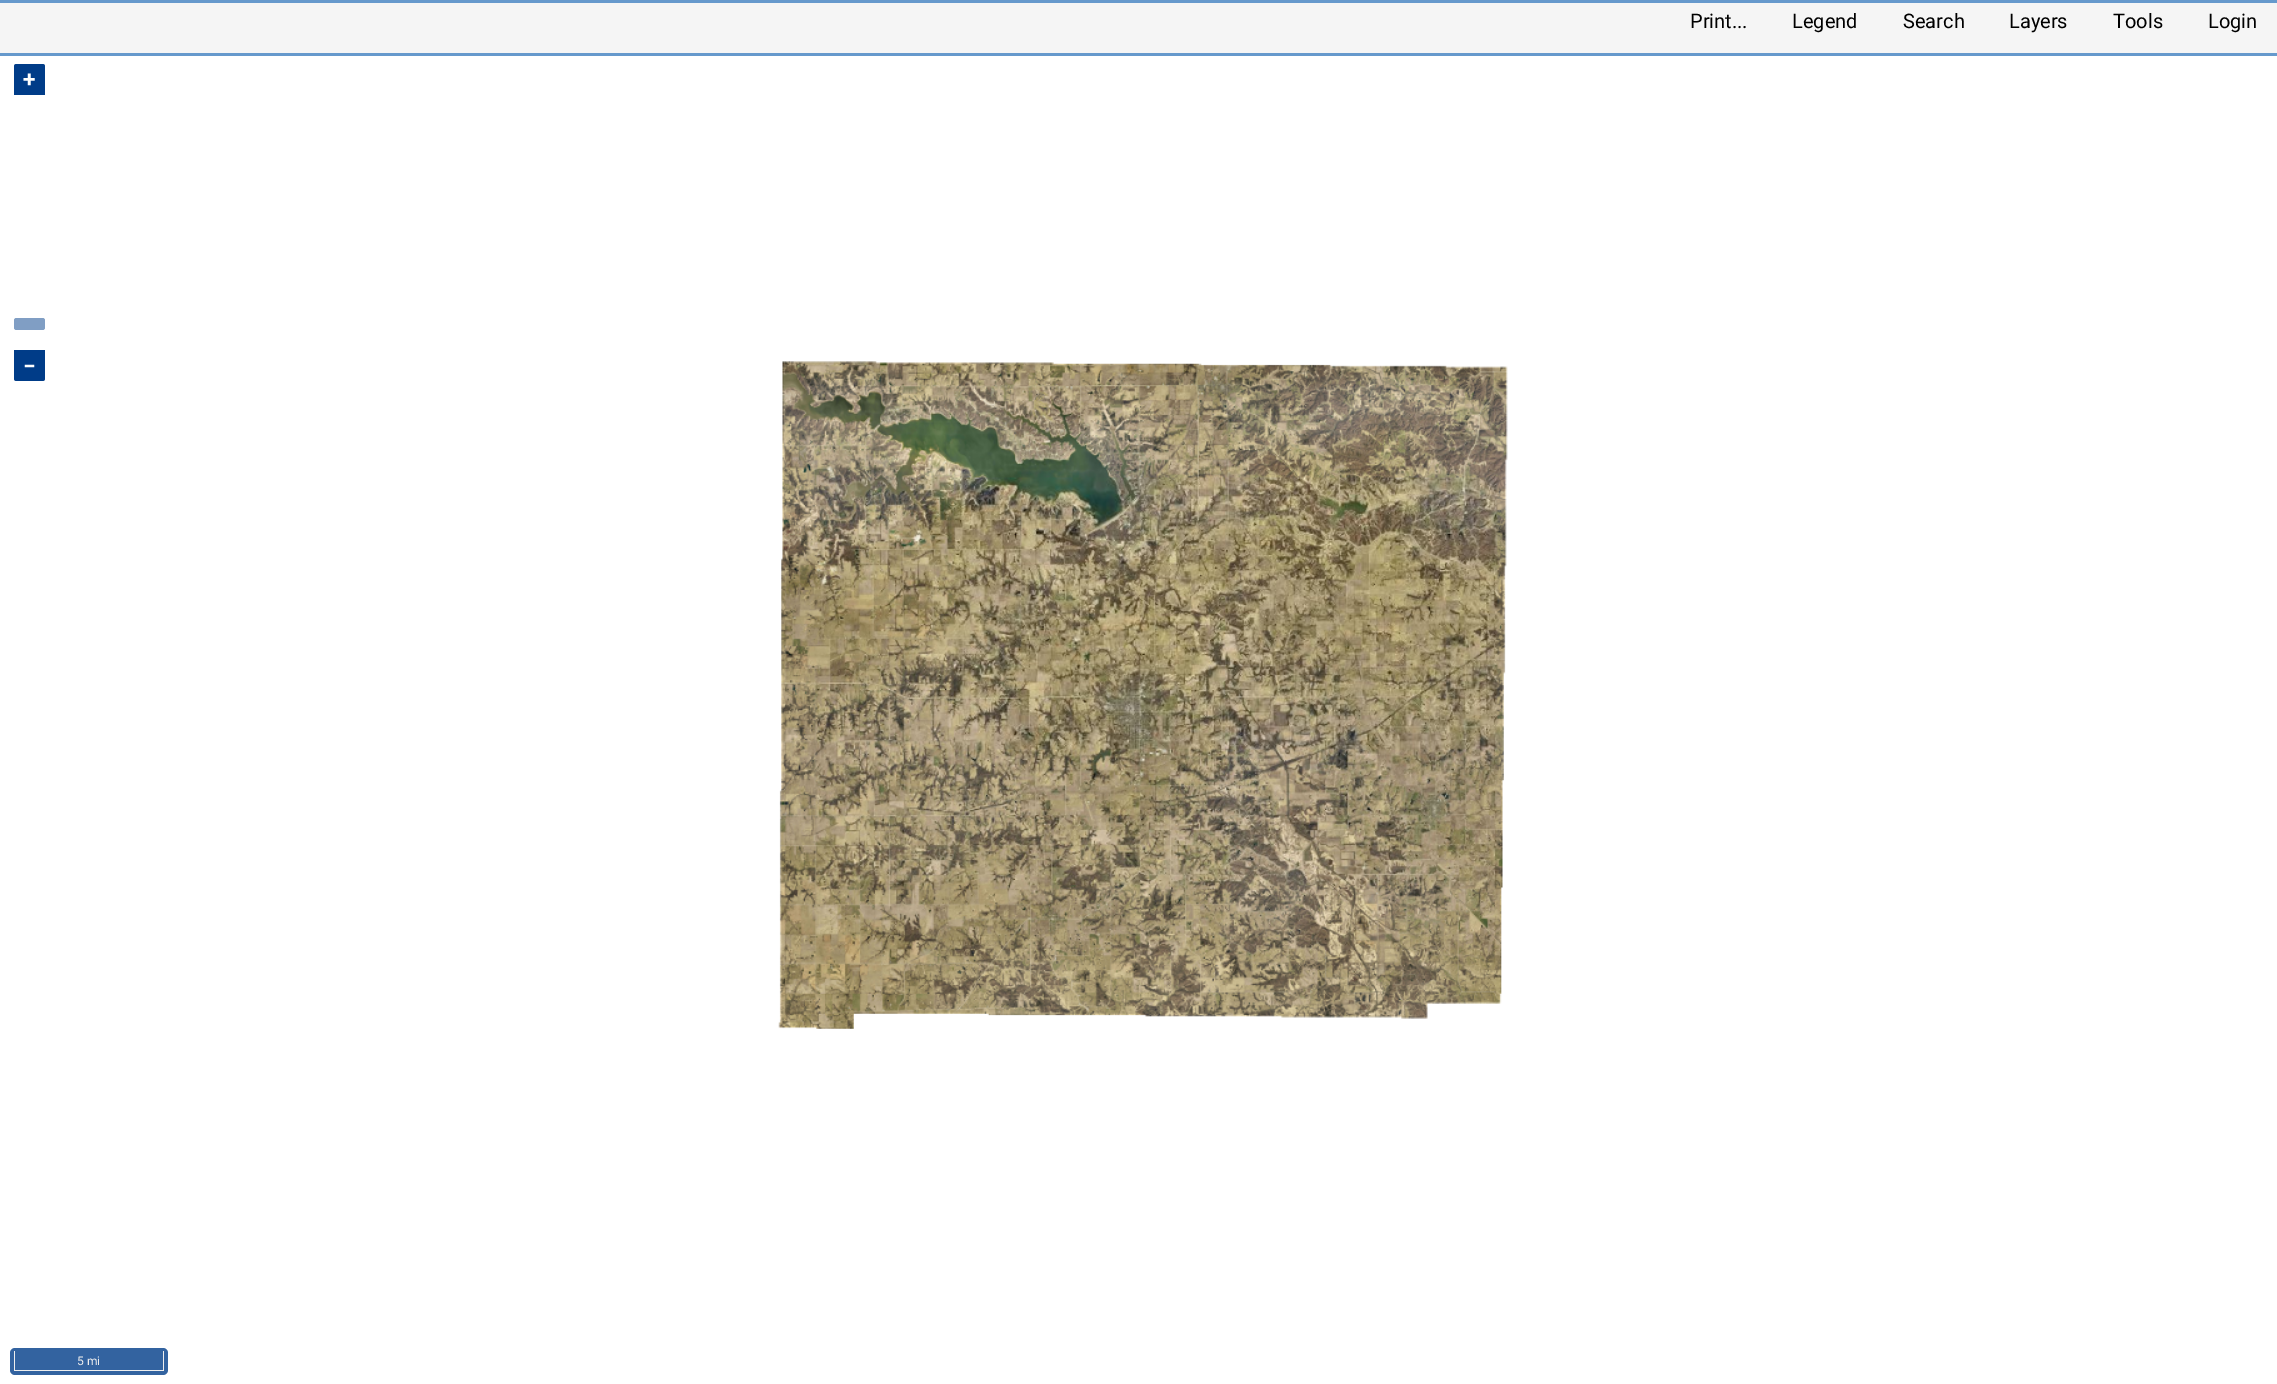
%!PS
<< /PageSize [2277 1384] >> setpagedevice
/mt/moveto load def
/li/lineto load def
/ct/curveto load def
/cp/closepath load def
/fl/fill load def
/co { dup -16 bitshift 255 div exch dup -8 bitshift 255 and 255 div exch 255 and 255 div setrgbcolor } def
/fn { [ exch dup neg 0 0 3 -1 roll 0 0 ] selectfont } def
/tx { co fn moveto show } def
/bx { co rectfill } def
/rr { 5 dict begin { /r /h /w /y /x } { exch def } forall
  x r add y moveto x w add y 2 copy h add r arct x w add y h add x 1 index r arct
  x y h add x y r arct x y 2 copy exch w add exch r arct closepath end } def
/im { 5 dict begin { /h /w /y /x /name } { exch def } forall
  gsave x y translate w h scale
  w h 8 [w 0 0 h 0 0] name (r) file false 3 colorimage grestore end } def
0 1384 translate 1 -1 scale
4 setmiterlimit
0 0 2277 1384 16#FFFFFF bx
0 3 2277 50 16#F5F5F5 bx
0 0 2277 3 16#6699CC bx
0 53 2277 3 16#6699CC bx
16#003C88 co
16.5 64 mt 42.5 64 li 44 64 45 65 45 66.5 ct 45 95 li 14 95 li 14 66.5 li 14 65 15 64 16.5 64 ct cp fl
14 350 mt 45 350 li 45 378.5 li 45 380 44 381 42.5 381 ct 16.5 381 li 15 381 14 380 14 378.5 ct cp fl
16#809EC4 co
14 318 31 12 2.5 rr fl
16#3363A0 co
10 1348 158 27 5 rr fl
163 1351 1 20 16#EEEEEE bx
14 1370 150 1 16#EEEEEE bx
14 1351 1 20 16#EEEEEE bx
(media/1.raw) 778 361 730 668 im
(Print...) 1690 28 /Roboto-Regular 20 16#000000 tx
(Legend) 1792 28 /Roboto-Regular 20 16#000000 tx
(Search) 1903 28 /Roboto-Regular 20 16#000000 tx
(Layers) 2009 28 /Roboto-Regular 20 16#000000 tx
(Tools) 2113 28 /Roboto-Regular 20 16#000000 tx
(Login) 2208 28 /Roboto-Regular 20 16#000000 tx
(+) 23 87 /Roboto-Bold 23 16#FFFFFF tx
(−) 23 374 /Roboto-Bold 23 16#FFFFFF tx
(5 mi) 77 1365 /Roboto-Regular 12 16#EEEEEE tx
showpage
